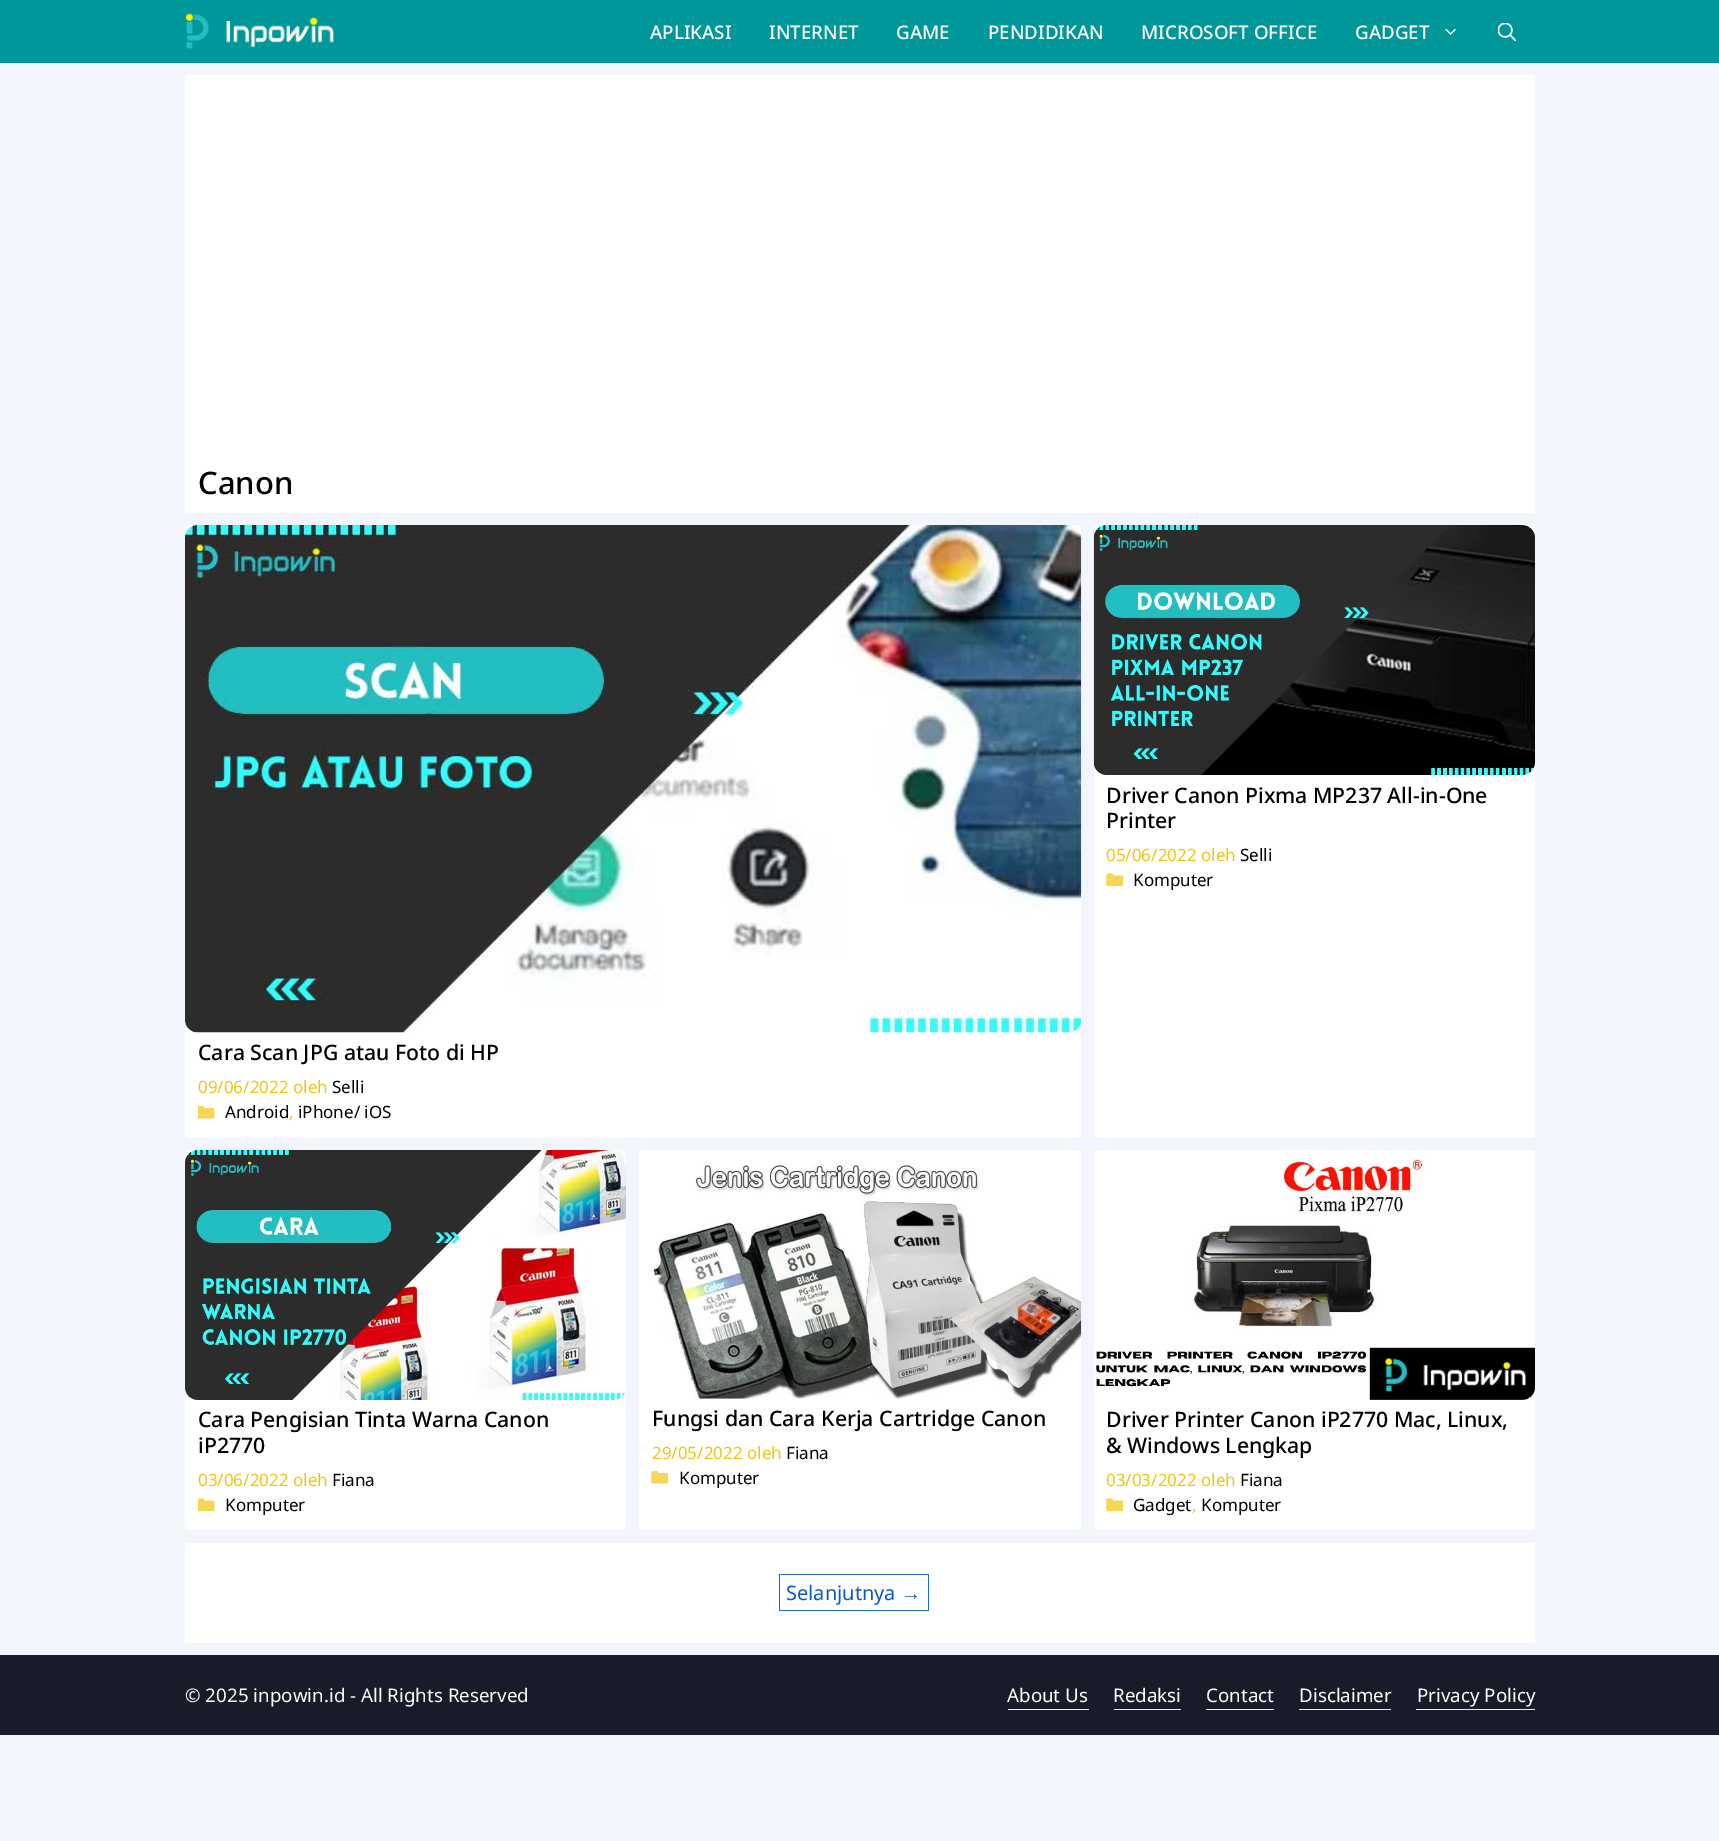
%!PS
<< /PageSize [1719 1841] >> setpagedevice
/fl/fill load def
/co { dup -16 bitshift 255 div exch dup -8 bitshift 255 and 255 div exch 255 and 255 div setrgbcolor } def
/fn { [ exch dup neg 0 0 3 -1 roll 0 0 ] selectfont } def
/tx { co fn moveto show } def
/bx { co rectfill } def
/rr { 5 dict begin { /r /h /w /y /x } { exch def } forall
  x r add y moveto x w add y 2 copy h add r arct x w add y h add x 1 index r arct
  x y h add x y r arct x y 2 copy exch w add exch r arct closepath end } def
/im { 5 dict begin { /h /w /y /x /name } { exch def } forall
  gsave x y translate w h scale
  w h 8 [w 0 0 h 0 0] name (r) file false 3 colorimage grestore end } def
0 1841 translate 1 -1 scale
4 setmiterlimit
0 0 1719 1841 16#F2F6FC bx
0 0 1719 63 16#00979A bx
(media/1.raw) 185 13 149 36 im
(media/2.raw) 1445 28 11 7 im
(media/3.raw) 1498 23 18 18 im
185 75 1350 438 16#FFFFFF bx
1094 525 441 613 4 rr fl
(media/4.raw) 1093 525 442 250 im
(media/5.raw) 1106 873 17 14 im
185 525 896 613 4 rr fl
(media/6.raw) 185 525 897 508 im
(media/7.raw) 198 1105 17 14 im
185 1150 441 380 4 rr fl
(media/8.raw) 185 1150 441 250 im
(media/9.raw) 198 1498 17 14 im
639 1150 442 380 4 rr fl
(media/10.raw) 653 1164 429 235 im
(media/11.raw) 651 1470 18 14 im
1094 1150 441 380 4 rr fl
(media/12.raw) 1094 1158 441 242 im
(media/5.raw) 1106 1498 17 14 im
185 1543 1350 100 16#FFFFFF bx
779 1574 150 1 16#1E72BD bx
779 1610 122 1 16#1E72BD bx
779 1574 1 37 16#1E72BD bx
928 1574 1 37 16#1E72BD bx
901 1610 28 1 16#1E72BD bx
0 1655 1719 80 16#181B29 bx
1008 1709 81 1 16#EEEEEE bx
1114 1709 67 1 16#EEEEEE bx
1206 1709 68 1 16#EEEEEE bx
1299 1709 92 1 16#EEEEEE bx
1416 1709 119 1 16#EEEEEE bx
(APLIKASI) 650 39 /NotoSans-Medium 18.75 16#FFFFFF tx
(INTERNET) 769 39 /NotoSans-Medium 18.75 16#FFFFFF tx
(GAME) 896 39 /NotoSans-Medium 18.75 16#FFFFFF tx
(PENDIDIKAN) 988 39 /NotoSans-Medium 18.75 16#FFFFFF tx
(MICROSOFT OFFICE) 1141 39 /NotoSans-Medium 18.75 16#FFFFFF tx
(GADGET) 1355 39 /NotoSans-Medium 18.75 16#FFFFFF tx
(Canon) 198 494 /NotoSans-Medium 31 16#000000 tx
(Driver Canon Pixma MP237 All-in-One) 1106 803 /NotoSans-Medium 21.25 16#000000 tx
(Printer) 1106 828 /NotoSans-Medium 21.25 16#000000 tx
(05/06/2022 oleh) 1106 861 /NotoSans-Regular 17 16#F1C40F tx
(Selli) 1240 861 /NotoSans-Regular 17 16#000000 tx
(Komputer) 1133 886 /NotoSans-Regular 17 16#000000 tx
(Cara Scan JPG atau Foto di HP) 198 1060 /NotoSans-Medium 21.25 16#000000 tx
(09/06/2022 oleh) 198 1093 /NotoSans-Regular 17 16#F1C40F tx
(Selli) 332 1093 /NotoSans-Regular 17 16#000000 tx
(Android) 225 1118 /NotoSans-Regular 17 16#000000 tx
(,) 289 1118 /NotoSans-Regular 17 16#F1C40F tx
(iPhone/ iOS) 298 1118 /NotoSans-Regular 17 16#000000 tx
(Cara Pengisian Tinta Warna Canon) 198 1427 /NotoSans-Medium 21.25 16#000000 tx
(iP2770) 198 1453 /NotoSans-Medium 21.25 16#000000 tx
(03/06/2022 oleh) 198 1486 /NotoSans-Regular 17 16#F1C40F tx
(Fiana) 332 1486 /NotoSans-Regular 17 16#000000 tx
(Komputer) 225 1511 /NotoSans-Regular 17 16#000000 tx
(Fungsi dan Cara Kerja Cartridge Canon) 652 1426 /NotoSans-Medium 21.25 16#000000 tx
(29/05/2022 oleh) 652 1459 /NotoSans-Regular 17 16#F1C40F tx
(Fiana) 786 1459 /NotoSans-Regular 17 16#000000 tx
(Komputer) 679 1484 /NotoSans-Regular 17 16#000000 tx
(Driver Printer Canon iP2770 Mac, Linux,) 1106 1427 /NotoSans-Medium 21.25 16#000000 tx
(& Windows Lengkap) 1106 1453 /NotoSans-Medium 21.25 16#000000 tx
(03/03/2022 oleh) 1106 1486 /NotoSans-Regular 17 16#F1C40F tx
(Fiana) 1240 1486 /NotoSans-Regular 17 16#000000 tx
(Gadget) 1133 1511 /NotoSans-Regular 17 16#000000 tx
(,) 1192 1511 /NotoSans-Regular 17 16#F1C40F tx
(Komputer) 1201 1511 /NotoSans-Regular 17 16#000000 tx
(Selanjutnya) 786 1600 /NotoSans-Regular 20 16#0B57D0 tx
(→) 901 1600 /LiberationSans-Regular 20 16#0B57D0 tx
(© 2025 inpowin.id - All Rights Reserved) 185 1702 /NotoSans-Regular 18.75 16#FFFDF7 tx
(About Us) 1007 1702 /NotoSans-Regular 18.75 16#FFFFFF tx
(Redaksi) 1113 1702 /NotoSans-Regular 18.75 16#FFFFFF tx
(Contact) 1206 1702 /NotoSans-Regular 18.75 16#FFFFFF tx
(Disclaimer) 1299 1702 /NotoSans-Regular 18.75 16#FFFFFF tx
(Privacy Policy) 1417 1702 /NotoSans-Regular 18.75 16#FFFFFF tx
showpage
